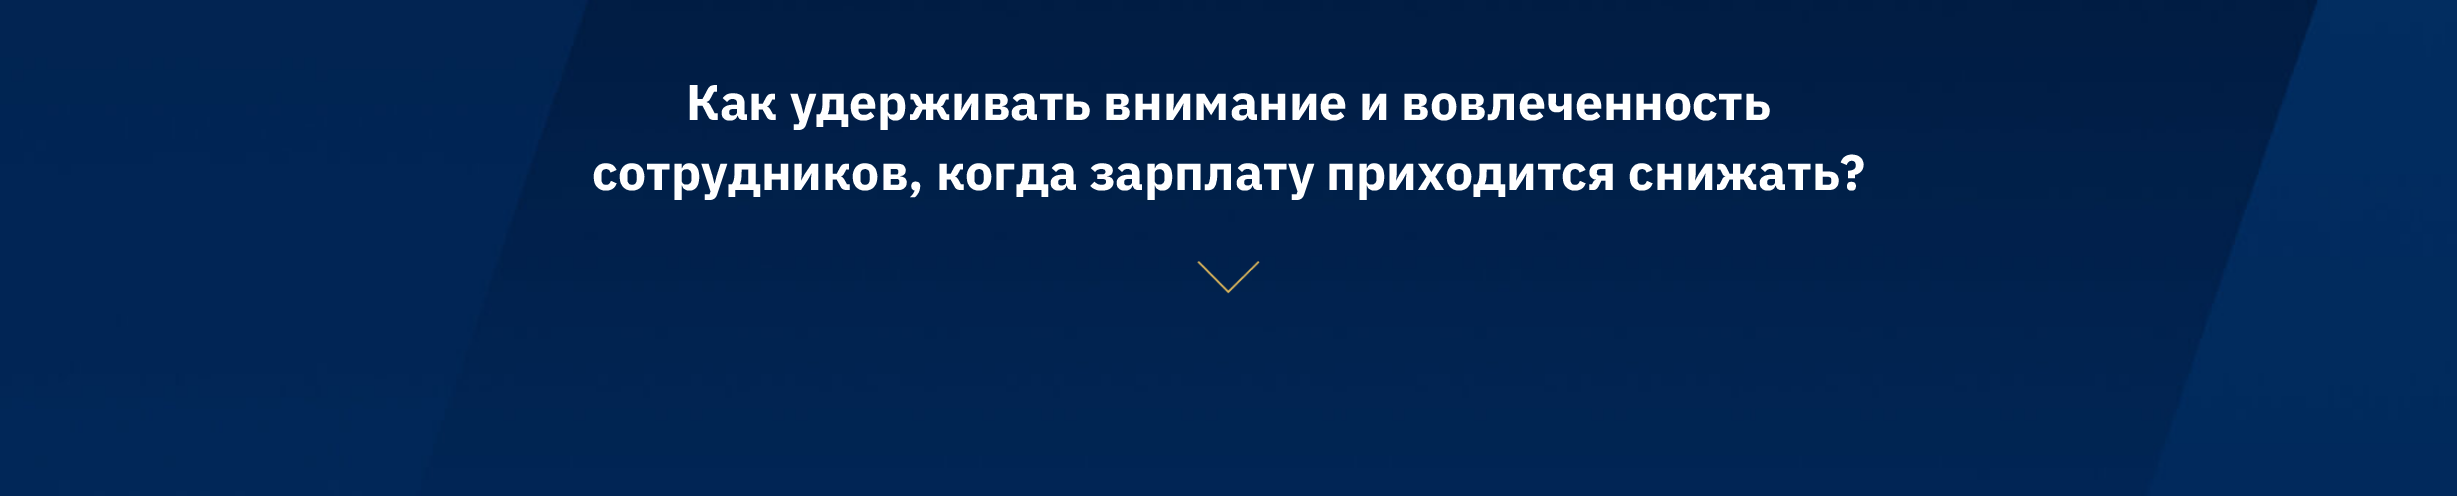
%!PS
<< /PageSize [2457 496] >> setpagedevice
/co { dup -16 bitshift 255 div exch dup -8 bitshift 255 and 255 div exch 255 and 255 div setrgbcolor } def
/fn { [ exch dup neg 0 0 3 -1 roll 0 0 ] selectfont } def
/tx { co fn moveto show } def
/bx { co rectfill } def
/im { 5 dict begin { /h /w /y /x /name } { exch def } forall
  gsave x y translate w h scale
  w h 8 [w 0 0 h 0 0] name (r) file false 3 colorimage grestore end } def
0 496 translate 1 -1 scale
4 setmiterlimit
0 0 2457 496 16#FFFFFF bx
(media/1.raw) 0 0 2457 496 im
(media/2.raw) 1197 261 63 33 im
(Как удерживать внимание и вовлеченность) 686 120 /IBMPlexSans-Bold 50 16#FFFFFF tx
(сотрудников, когда зарплату приходится снижать?) 592 190 /IBMPlexSans-Bold 50 16#FFFFFF tx
showpage
